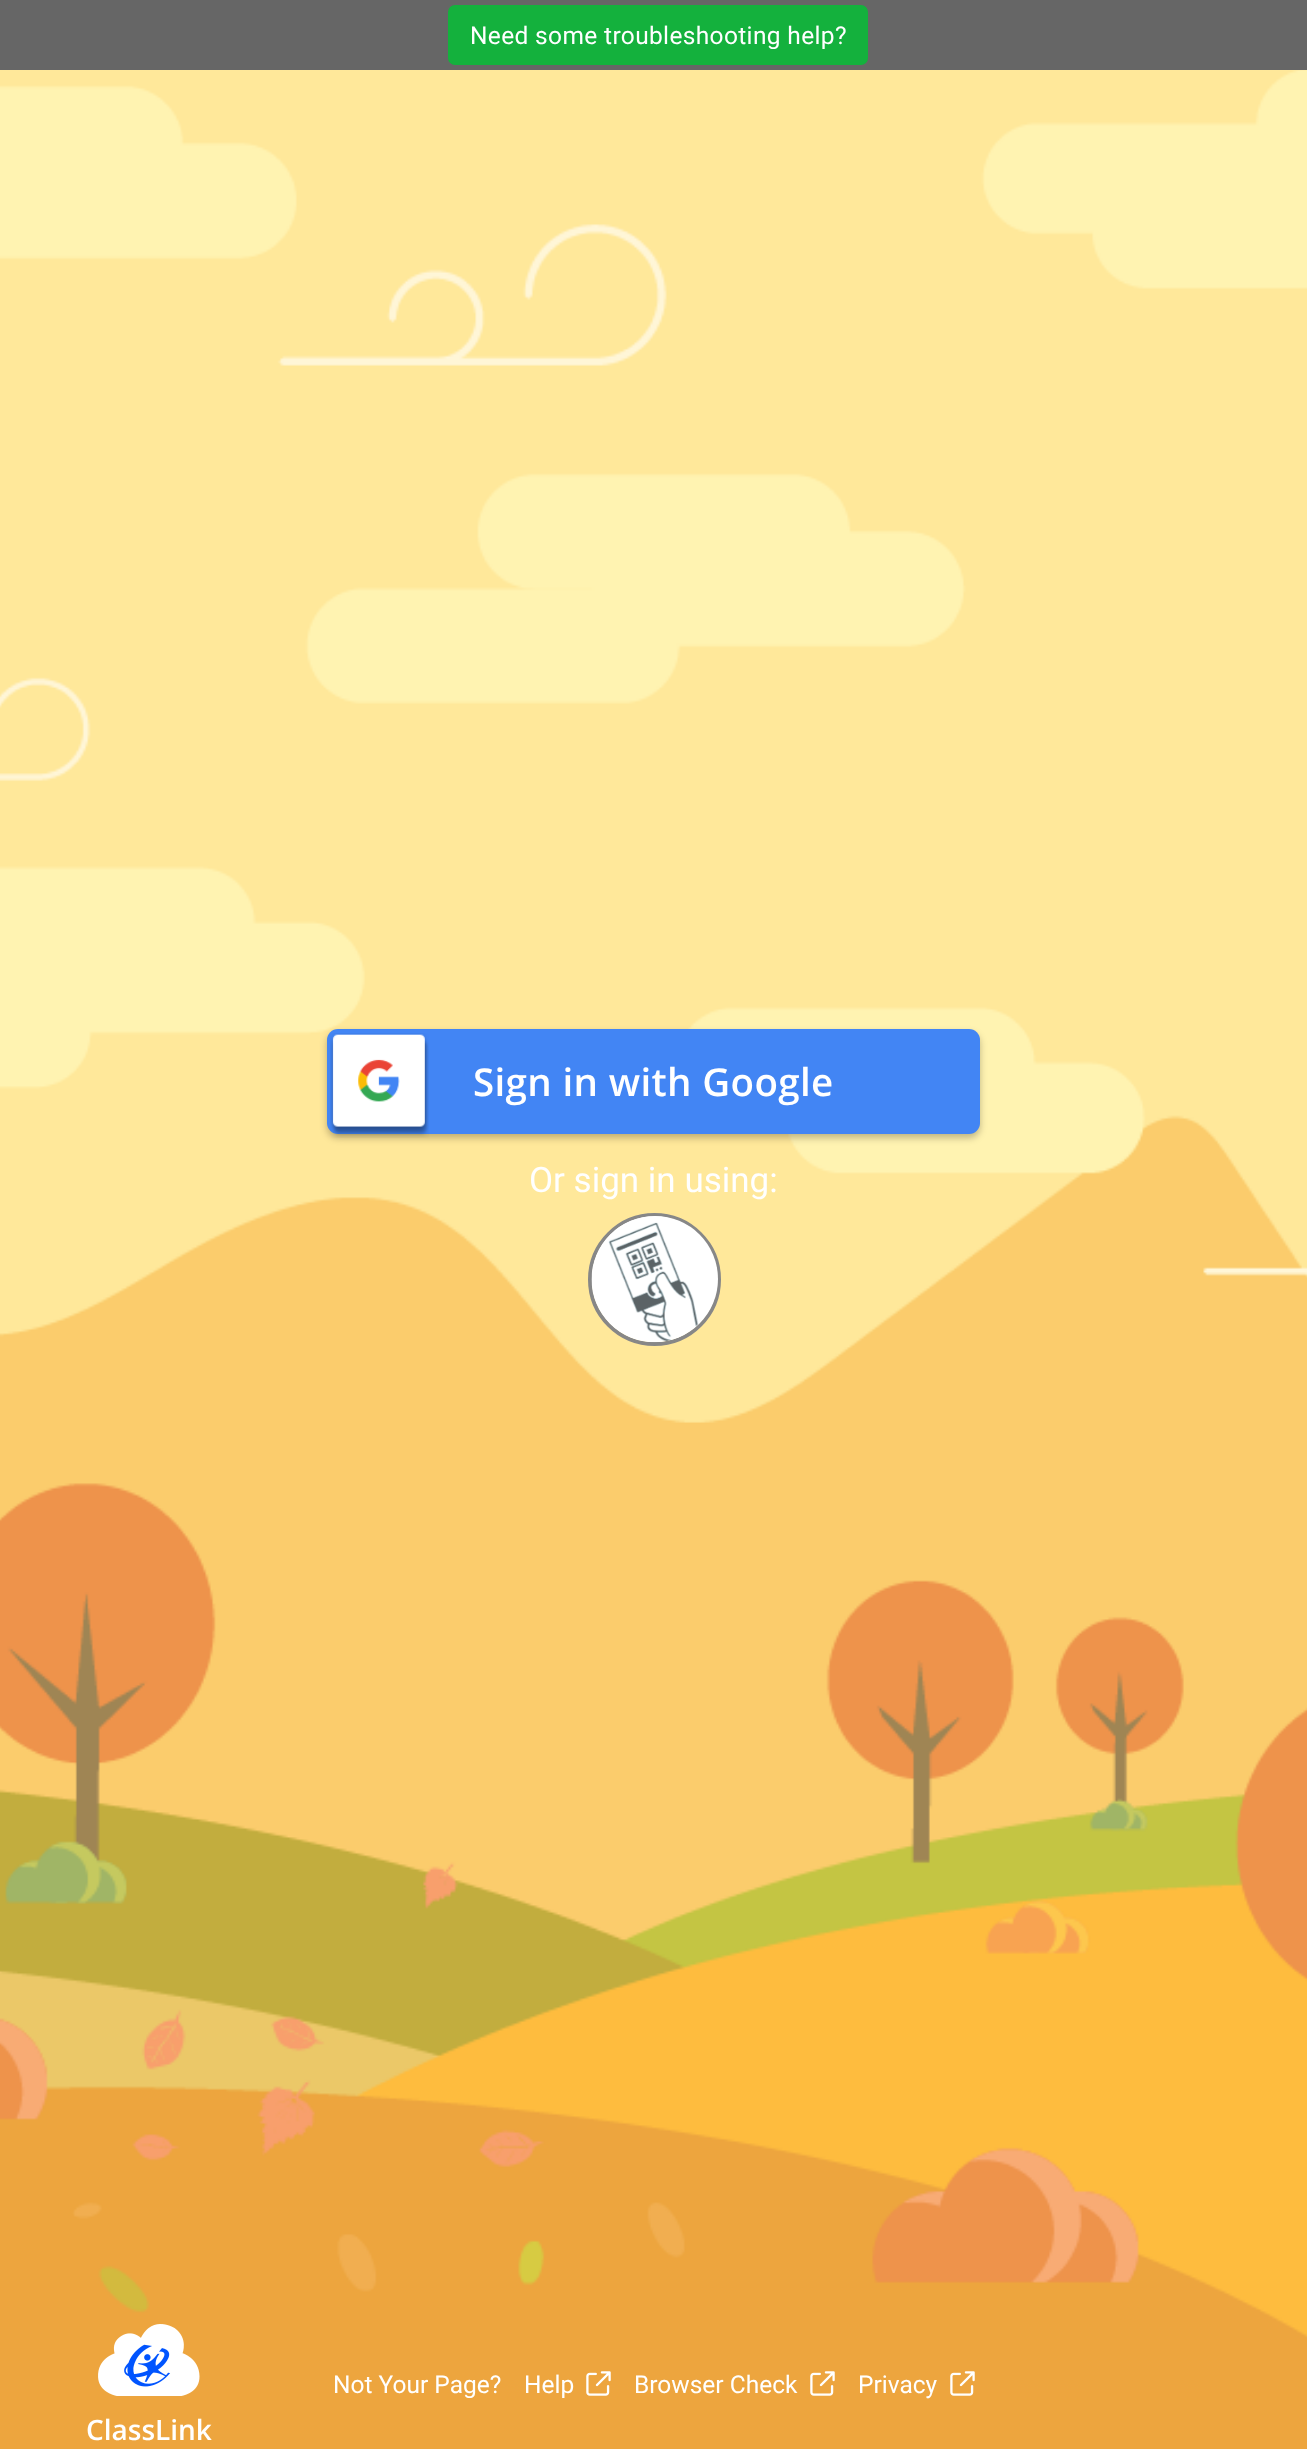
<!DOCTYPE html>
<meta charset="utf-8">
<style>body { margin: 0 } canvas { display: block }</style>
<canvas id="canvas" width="1307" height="2449"></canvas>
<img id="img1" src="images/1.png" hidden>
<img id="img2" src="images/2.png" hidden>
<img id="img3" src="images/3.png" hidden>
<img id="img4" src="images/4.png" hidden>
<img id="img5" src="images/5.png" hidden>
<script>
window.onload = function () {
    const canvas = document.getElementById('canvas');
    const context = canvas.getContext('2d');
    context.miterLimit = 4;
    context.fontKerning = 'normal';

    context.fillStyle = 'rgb(255, 255, 255)';
    context.fillRect(0, 0, 1307, 2449);
    context.drawImage(document.getElementById('img1'), 0, 70, 1307, 2379);
    context.fillStyle = 'rgb(102, 102, 102)';
    context.fillRect(0, 0, 1307, 70);
    context.fillStyle = 'rgb(20, 177, 61)';
    context.beginPath();
    context.roundRect(448, 5, 420, 60, 7);
    context.fill();
    context.fillStyle = 'rgba(0, 0, 0, 0.25)';
    context.filter = 'blur(3.5px)';
    context.beginPath();
    context.roundRect(327, 1033, 653, 105, 11);
    context.fill();
    context.filter = 'none';
    context.fillStyle = 'rgb(66, 133, 244)';
    context.beginPath();
    context.roundRect(327, 1029, 653, 105, 11);
    context.fill();
    context.drawImage(document.getElementById('img2'), 330, 1033, 99, 105);
    context.beginPath();
    context.arc(654.5, 1279.5, 64.5, 0, 2 * Math.PI);
    context.strokeStyle = 'rgb(135, 135, 135)';
    context.lineWidth = 4;
    context.stroke();
    context.fillStyle = 'rgb(255, 255, 255)';
    context.beginPath();
    context.arc(655, 1279, 63, 0, 2 * Math.PI);
    context.fill();
    context.drawImage(document.getElementById('img3'), 591, 1216, 108, 127);
    context.drawImage(document.getElementById('img4'), 586, 2371, 25, 25);
    context.drawImage(document.getElementById('img4'), 810, 2371, 25, 25);
    context.drawImage(document.getElementById('img4'), 950, 2371, 25, 25);
    context.drawImage(document.getElementById('img5'), 98, 2324, 102, 72);
    context.letterSpacing = '0.35px';
    context.font = '24.5px Roboto';
    context.fillText('Need some troubleshooting help?', 470, 44);
    context.font = '600 38.5px Open Sans';
    context.fillText('Sign in with Google', 473, 1096);
    context.letterSpacing = '0px';
    context.font = '35px Roboto';
    context.fillText('Or sign in using:', 529, 1192);
    context.font = '24.5px Roboto';
    context.fillText('Not Your Page?', 333, 2393);
    context.fillText('Help', 524, 2393);
    context.fillText('Browser Check', 634, 2393);
    context.fillText('Privacy', 858, 2393);
    context.font = '600 28px Open Sans';
    context.fillText('ClassLink', 86, 2440);
};
</script>
